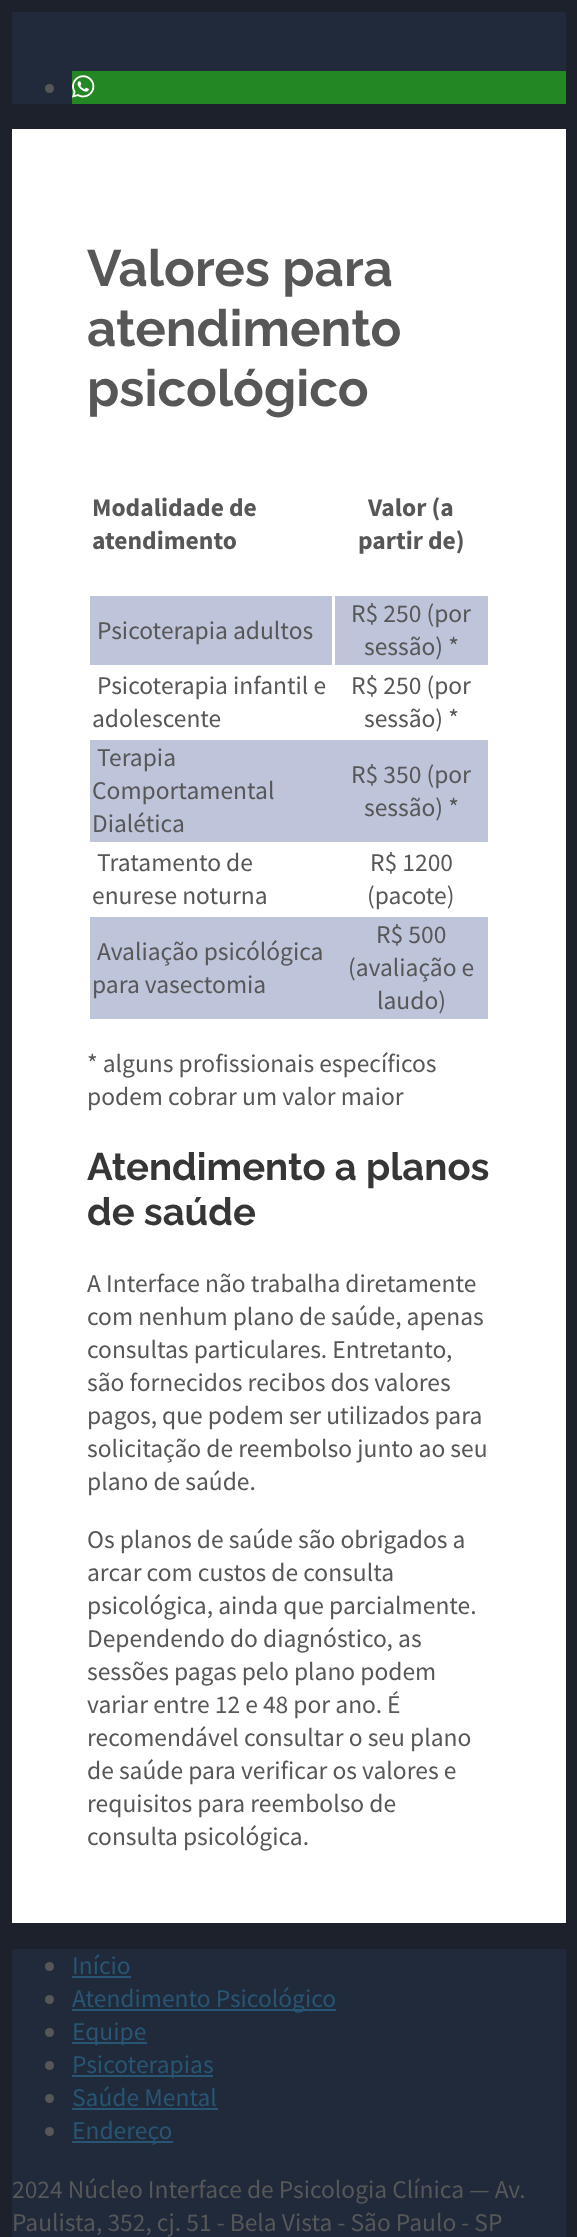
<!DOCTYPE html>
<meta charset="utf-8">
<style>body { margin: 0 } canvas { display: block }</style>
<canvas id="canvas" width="577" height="2237"></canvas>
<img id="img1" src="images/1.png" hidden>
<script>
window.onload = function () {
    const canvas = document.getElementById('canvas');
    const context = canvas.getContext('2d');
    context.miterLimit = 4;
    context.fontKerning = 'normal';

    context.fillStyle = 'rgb(28, 33, 43)';
    context.fillRect(0, 0, 577, 2237);
    context.fillStyle = 'rgb(32, 42, 59)';
    context.fillRect(12, 12, 554, 92);
    context.fillStyle = 'rgb(35, 135, 35)';
    context.fillRect(72, 71, 494, 33);
    context.fillStyle = 'rgb(87, 87, 87)';
    context.beginPath();
    context.arc(49.5, 88.5, 4.5, 0, 2 * Math.PI);
    context.fill();
    context.drawImage(document.getElementById('img1'), 72, 75, 23, 23);
    context.fillStyle = 'rgb(255, 255, 255)';
    context.fillRect(12, 129, 554, 1794);
    context.fillStyle = 'rgb(190, 196, 218)';
    context.fillRect(90, 596, 242, 69);
    context.fillRect(335, 596, 153, 69);
    context.fillRect(90, 740, 398, 102);
    context.fillRect(90, 917, 398, 102);
    context.fillStyle = 'rgb(32, 42, 59)';
    context.fillRect(12, 1949, 554, 288);
    context.fillStyle = 'rgb(87, 87, 87)';
    context.beginPath();
    context.arc(49.5, 1966.5, 4.5, 0, 2 * Math.PI);
    context.fill();
    context.fillStyle = 'rgb(39, 85, 115)';
    context.fillRect(72, 1976, 59, 2);
    context.fillStyle = 'rgb(87, 87, 87)';
    context.beginPath();
    context.arc(49.5, 1999.5, 4.5, 0, 2 * Math.PI);
    context.fill();
    context.fillStyle = 'rgb(39, 85, 115)';
    context.fillRect(72, 2009, 264, 2);
    context.fillStyle = 'rgb(87, 87, 87)';
    context.beginPath();
    context.arc(49.5, 2032.5, 4.5, 0, 2 * Math.PI);
    context.fill();
    context.fillStyle = 'rgb(39, 85, 115)';
    context.fillRect(72, 2042, 75, 2);
    context.fillStyle = 'rgb(87, 87, 87)';
    context.beginPath();
    context.arc(49.5, 2065.5, 4.5, 0, 2 * Math.PI);
    context.fill();
    context.fillStyle = 'rgb(39, 85, 115)';
    context.fillRect(72, 2075, 141, 2);
    context.fillStyle = 'rgb(87, 87, 87)';
    context.beginPath();
    context.arc(49.5, 2098.5, 4.5, 0, 2 * Math.PI);
    context.fill();
    context.fillStyle = 'rgb(39, 85, 115)';
    context.fillRect(72, 2108, 146, 2);
    context.fillStyle = 'rgb(87, 87, 87)';
    context.beginPath();
    context.arc(49.5, 2131.5, 4.5, 0, 2 * Math.PI);
    context.fill();
    context.fillStyle = 'rgb(39, 85, 115)';
    context.fillRect(72, 2141, 101, 2);
    context.font = 'bold 51px Raleway';
    context.fillStyle = 'rgb(87, 87, 87)';
    context.fillText('Valores para', 87, 286);
    context.fillText('atendimento', 87, 346);
    context.fillText('psicológico', 87, 406);
    context.font = 'bold 25.5px Source Sans Pro';
    context.fillText('Modalidade de', 92, 516);
    context.fillText('atendimento', 92, 549);
    context.fillText('Valor (a', 368, 516);
    context.fillText('partir de)', 358, 549);
    context.font = '25.5px Source Sans Pro';
    context.fillText('Psicoterapia adultos', 97, 639);
    context.fillText('R$ 250 (por', 351, 622);
    context.fillText('sessão) *', 364, 655);
    context.fillText('Psicoterapia infantil e', 97, 694);
    context.fillText('adolescente', 92, 727);
    context.fillText('R$ 250 (por', 351, 694);
    context.fillText('sessão) *', 364, 727);
    context.fillText('Terapia', 97, 766);
    context.fillText('Comportamental', 92, 799);
    context.fillText('Dialética', 92, 832);
    context.fillText('R$ 350 (por', 351, 783);
    context.fillText('sessão) *', 364, 816);
    context.fillText('Tratamento de', 97, 871);
    context.fillText('enurese noturna', 92, 904);
    context.fillText('R$ 1200', 370, 871);
    context.fillText('(pacote)', 367, 904);
    context.fillText('Avaliação psicólógica', 97, 960);
    context.fillText('para vasectomia', 92, 993);
    context.fillText('R$ 500', 376, 943);
    context.fillText('(avaliação e', 348, 976);
    context.fillText('laudo)', 377, 1009);
    context.fillText('* alguns profissionais específicos', 87, 1072);
    context.fillText('podem cobrar um valor maior', 87, 1105);
    context.font = 'bold 38.25px Raleway';
    context.fillStyle = 'rgb(54, 54, 54)';
    context.fillText('Atendimento a planos', 87, 1180);
    context.fillText('de saúde', 87, 1225);
    context.font = '25.5px Source Sans Pro';
    context.fillStyle = 'rgb(87, 87, 87)';
    context.fillText('A Interface não trabalha diretamente', 87, 1292);
    context.fillText('com nenhum plano de saúde, apenas', 87, 1325);
    context.fillText('consultas particulares. Entretanto,', 87, 1358);
    context.fillText('são fornecidos recibos dos valores', 87, 1391);
    context.fillText('pagos, que podem ser utilizados para', 87, 1424);
    context.fillText('solicitação de reembolso junto ao seu', 87, 1457);
    context.fillText('plano de saúde.', 87, 1490);
    context.fillText('Os planos de saúde são obrigados a', 87, 1548);
    context.fillText('arcar com custos de consulta', 87, 1581);
    context.fillText('psicológica, ainda que parcialmente.', 87, 1614);
    context.fillText('Dependendo do diagnóstico, as', 87, 1647);
    context.fillText('sessões pagas pelo plano podem', 87, 1680);
    context.fillText('variar entre 12 e 48 por ano. É', 87, 1713);
    context.fillText('recomendável consultar o seu plano', 87, 1746);
    context.fillText('de saúde para verificar os valores e', 87, 1779);
    context.fillText('requisitos para reembolso de', 87, 1812);
    context.fillText('consulta psicológica.', 87, 1845);
    context.fillStyle = 'rgb(39, 85, 115)';
    context.fillText('Início', 72, 1974);
    context.fillText('Atendimento Psicológico', 72, 2007);
    context.fillText('Equipe', 72, 2040);
    context.fillText('Psicoterapias', 72, 2073);
    context.fillText('Saúde Mental', 72, 2106);
    context.fillText('Endereço', 72, 2139);
    context.fillStyle = 'rgb(87, 87, 87)';
    context.fillText('2024 Núcleo Interface de Psicologia Clínica — Av.', 12, 2198);
    context.fillText('Paulista, 352, cj. 51 - Bela Vista - São Paulo - SP', 12, 2231);
};
</script>
